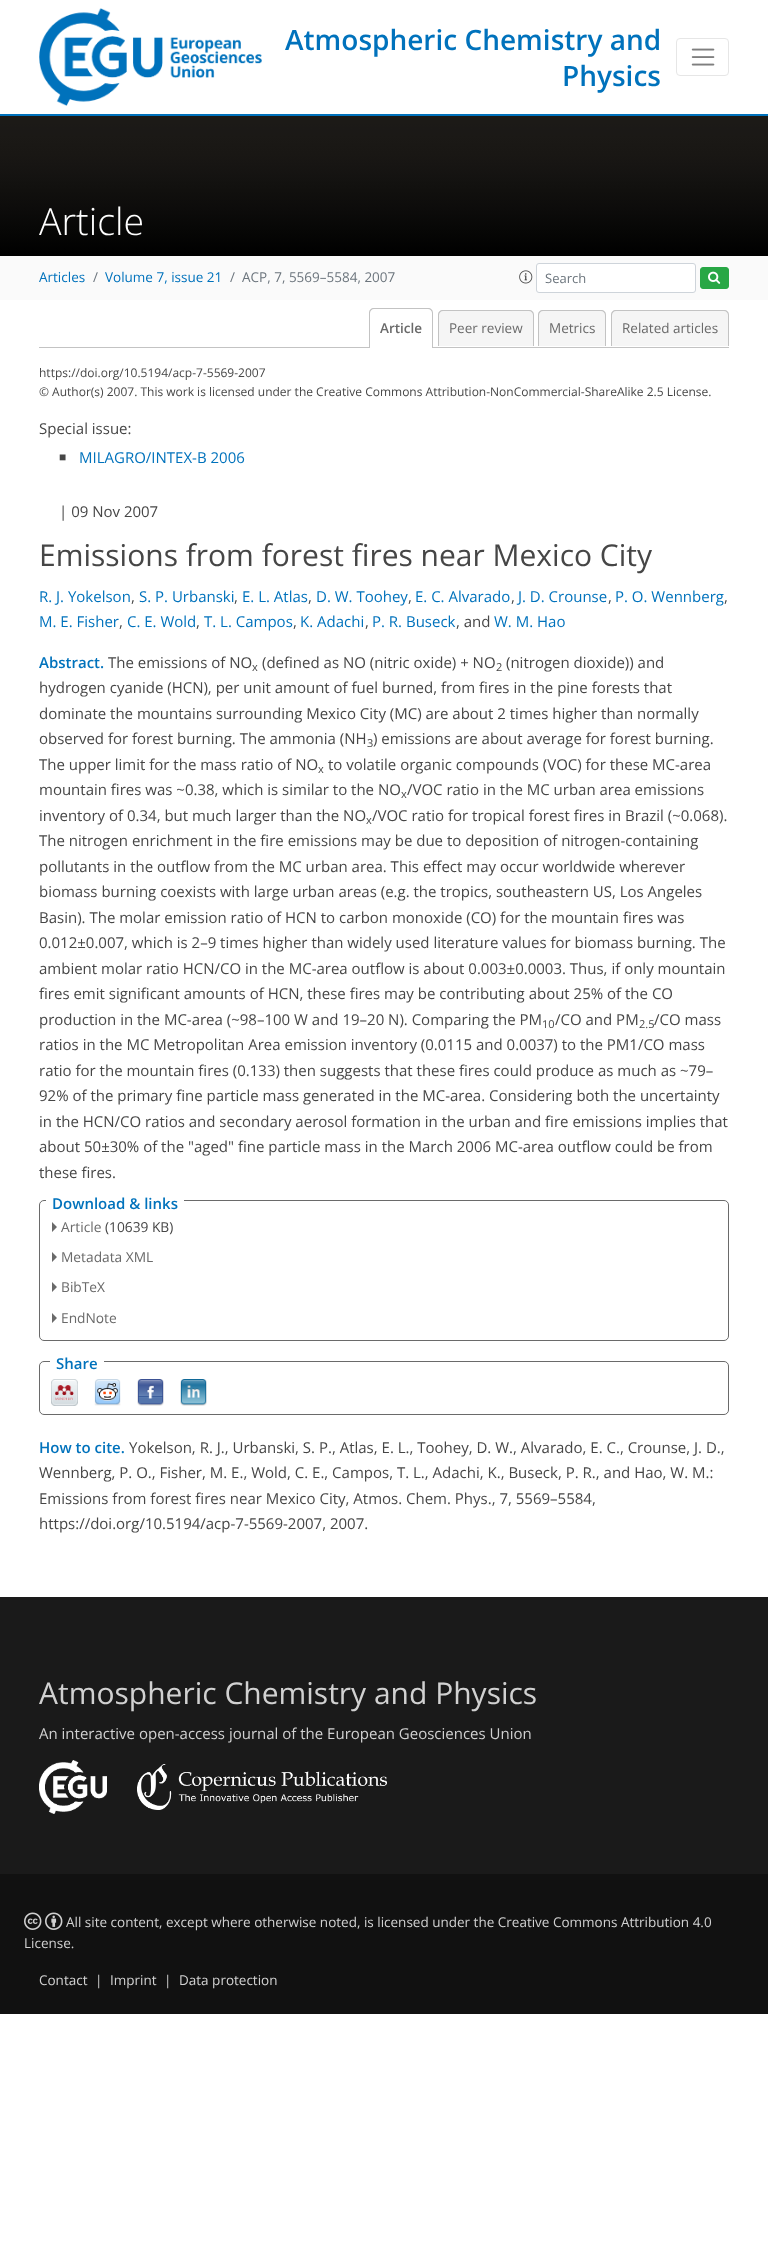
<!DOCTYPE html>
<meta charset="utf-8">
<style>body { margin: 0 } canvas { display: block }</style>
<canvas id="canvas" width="768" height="2255"></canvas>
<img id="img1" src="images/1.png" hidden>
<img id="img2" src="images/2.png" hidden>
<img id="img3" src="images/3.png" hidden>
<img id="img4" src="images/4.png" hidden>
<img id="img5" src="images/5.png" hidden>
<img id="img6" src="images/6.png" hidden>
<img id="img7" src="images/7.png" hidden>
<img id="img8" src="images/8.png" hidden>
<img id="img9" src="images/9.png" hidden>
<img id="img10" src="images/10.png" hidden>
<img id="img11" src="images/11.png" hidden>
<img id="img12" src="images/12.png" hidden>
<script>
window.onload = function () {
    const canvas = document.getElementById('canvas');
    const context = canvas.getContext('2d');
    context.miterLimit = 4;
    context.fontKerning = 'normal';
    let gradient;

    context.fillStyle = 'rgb(255, 255, 255)';
    context.fillRect(0, 0, 768, 2255);
    context.drawImage(document.getElementById('img1'), 39, 8, 223, 98);
    context.beginPath();
    context.roundRect(676.5, 38.5, 52, 37, 3.5);
    context.strokeStyle = 'rgb(230, 230, 230)';
    context.stroke();
    context.drawImage(document.getElementById('img2'), 691, 48, 24, 18);
    context.fillStyle = 'rgb(0, 114, 188)';
    context.fillRect(0, 114, 768, 2);
    gradient = context.createLinearGradient(384, 256, 384, 116);
    gradient.addColorStop(0, 'rgb(0, 0, 0)');
    gradient.addColorStop(0.19, 'rgb(7, 7, 6)');
    gradient.addColorStop(0.34, 'rgb(13, 12, 11)');
    gradient.addColorStop(0.47, 'rgb(17, 16, 14)');
    gradient.addColorStop(0.56, 'rgb(20, 19, 17)');
    gradient.addColorStop(0.65, 'rgb(23, 21, 19)');
    gradient.addColorStop(0.73, 'rgb(25, 23, 20)');
    gradient.addColorStop(0.8, 'rgb(26, 24, 21)');
    gradient.addColorStop(0.86, 'rgb(27, 25, 22)');
    gradient.addColorStop(0.91, 'rgb(27, 25, 23)');
    gradient.addColorStop(0.95, 'rgb(28, 26, 23)');
    gradient.addColorStop(1, 'rgb(28, 26, 23)');
    context.fillStyle = gradient;
    context.fillRect(0, 116, 768, 140);
    context.fillStyle = 'rgb(250, 250, 250)';
    context.fillRect(0, 256, 768, 44);
    context.drawImage(document.getElementById('img3'), 519, 270, 14, 14);
    context.fillStyle = 'rgb(255, 255, 255)';
    context.beginPath();
    context.roundRect(536.5, 263.5, 159, 29, 2.5);
    context.fill();
    context.strokeStyle = 'rgb(206, 212, 218)';
    context.stroke();
    context.fillStyle = 'rgb(40, 167, 69)';
    context.beginPath();
    context.roundRect(700.5, 267.5, 28, 21, 2.5);
    context.fill();
    context.strokeStyle = 'rgb(40, 167, 69)';
    context.stroke();
    context.drawImage(document.getElementById('img4'), 708, 271, 13, 13);
    context.fillStyle = 'rgb(195, 195, 195)';
    context.fillRect(39, 347, 690, 1);
    context.fillStyle = 'rgb(255, 255, 255)';
    context.beginPath();
    context.roundRect(369, 308, 64, 40, [5, 5, 0, 0]);
    context.fill();
    context.fillStyle = 'rgb(195, 195, 195)';
    context.beginPath();
    context.moveTo(374, 308);
    context.lineTo(428, 308);
    context.bezierCurveTo(431, 308, 433, 310, 433, 313);
    context.lineTo(433, 348);
    context.lineTo(369, 348);
    context.lineTo(369, 313);
    context.bezierCurveTo(369, 310, 371, 308, 374, 308);
    context.closePath();
    context.moveTo(374, 309);
    context.lineTo(428, 309);
    context.bezierCurveTo(430, 309, 432, 311, 432, 313);
    context.lineTo(432, 348);
    context.lineTo(370, 348);
    context.lineTo(370, 313);
    context.bezierCurveTo(370, 311, 372, 309, 374, 309);
    context.closePath();
    context.fill('evenodd');
    context.fillStyle = 'rgb(245, 245, 245)';
    context.beginPath();
    context.roundRect(438, 310, 96, 36, [5, 5, 0, 0]);
    context.fill();
    context.fillStyle = 'rgb(195, 195, 195)';
    context.beginPath();
    context.moveTo(443, 310);
    context.lineTo(529, 310);
    context.bezierCurveTo(532, 310, 534, 312, 534, 315);
    context.lineTo(534, 346);
    context.lineTo(438, 346);
    context.lineTo(438, 315);
    context.bezierCurveTo(438, 312, 440, 310, 443, 310);
    context.closePath();
    context.moveTo(443, 311);
    context.lineTo(529, 311);
    context.bezierCurveTo(531, 311, 533, 313, 533, 315);
    context.lineTo(533, 346);
    context.lineTo(439, 346);
    context.lineTo(439, 315);
    context.bezierCurveTo(439, 313, 441, 311, 443, 311);
    context.closePath();
    context.fill('evenodd');
    context.fillStyle = 'rgb(245, 245, 245)';
    context.beginPath();
    context.roundRect(538, 310, 68, 36, [5, 5, 0, 0]);
    context.fill();
    context.fillStyle = 'rgb(195, 195, 195)';
    context.beginPath();
    context.moveTo(543, 310);
    context.lineTo(601, 310);
    context.bezierCurveTo(604, 310, 606, 312, 606, 315);
    context.lineTo(606, 346);
    context.lineTo(538, 346);
    context.lineTo(538, 315);
    context.bezierCurveTo(538, 312, 540, 310, 543, 310);
    context.closePath();
    context.moveTo(543, 311);
    context.lineTo(601, 311);
    context.bezierCurveTo(603, 311, 605, 313, 605, 315);
    context.lineTo(605, 346);
    context.lineTo(539, 346);
    context.lineTo(539, 315);
    context.bezierCurveTo(539, 313, 541, 311, 543, 311);
    context.closePath();
    context.fill('evenodd');
    context.fillStyle = 'rgb(245, 245, 245)';
    context.beginPath();
    context.roundRect(611, 310, 118, 36, [5, 5, 0, 0]);
    context.fill();
    context.fillStyle = 'rgb(195, 195, 195)';
    context.beginPath();
    context.moveTo(616, 310);
    context.lineTo(724, 310);
    context.bezierCurveTo(727, 310, 729, 312, 729, 315);
    context.lineTo(729, 346);
    context.lineTo(611, 346);
    context.lineTo(611, 315);
    context.bezierCurveTo(611, 312, 613, 310, 616, 310);
    context.closePath();
    context.moveTo(616, 311);
    context.lineTo(724, 311);
    context.bezierCurveTo(726, 311, 728, 313, 728, 315);
    context.lineTo(728, 346);
    context.lineTo(612, 346);
    context.lineTo(612, 315);
    context.bezierCurveTo(612, 313, 614, 311, 616, 311);
    context.closePath();
    context.fill('evenodd');
    context.beginPath();
    context.roundRect(39.5, 1200.5, 689, 140, 4.5);
    context.strokeStyle = 'rgb(106, 106, 106)';
    context.stroke();
    context.fillStyle = 'rgb(255, 255, 255)';
    context.fillRect(46, 1200, 138, 1);
    context.fillStyle = 'rgb(106, 106, 106)';
    context.beginPath();
    context.moveTo(52, 1232);
    context.lineTo(52, 1222);
    context.lineTo(57, 1227);
    context.closePath();
    context.moveTo(52, 1262);
    context.lineTo(52, 1252);
    context.lineTo(57, 1257);
    context.closePath();
    context.fill();
    context.beginPath();
    context.moveTo(52, 1292);
    context.lineTo(52, 1282);
    context.lineTo(57, 1287);
    context.closePath();
    context.moveTo(52, 1323);
    context.lineTo(52, 1313);
    context.lineTo(57, 1318);
    context.closePath();
    context.fill();
    context.beginPath();
    context.roundRect(39.5, 1361.5, 689, 53, 4.5);
    context.stroke();
    context.fillStyle = 'rgb(255, 255, 255)';
    context.fillRect(50, 1361, 54, 1);
    context.drawImage(document.getElementById('img5'), 51, 1379, 27, 27);
    context.drawImage(document.getElementById('img6'), 94, 1379, 27, 27);
    context.drawImage(document.getElementById('img7'), 137, 1379, 27, 27);
    context.drawImage(document.getElementById('img8'), 180, 1379, 27, 27);
    context.fillStyle = 'rgb(26, 26, 26)';
    context.fillRect(0, 1597, 768, 277);
    context.drawImage(document.getElementById('img9'), 39, 1760, 68, 54);
    context.drawImage(document.getElementById('img10'), 137, 1764, 250, 46);
    context.fillStyle = 'rgb(17, 17, 17)';
    context.fillRect(0, 1874, 768, 140);
    context.drawImage(document.getElementById('img11'), 24, 1912, 18, 18);
    context.drawImage(document.getElementById('img12'), 45, 1912, 18, 18);
    context.font = '600 28px Open Sans';
    context.fillStyle = 'rgb(0, 114, 188)';
    context.fillText('Atmospheric Chemistry and', 285, 50);
    context.fillText('Physics', 562, 86);
    context.font = '300 37.5px Open Sans';
    context.fillStyle = 'rgb(255, 255, 255)';
    context.fillText('Article', 39, 235);
    context.font = '13.5px Open Sans';
    context.fillStyle = 'rgb(0, 114, 188)';
    context.fillText('Articles', 39, 282);
    context.fillStyle = 'rgb(108, 117, 125)';
    context.fillText('/', 93, 282);
    context.fillStyle = 'rgb(0, 114, 188)';
    context.fillText('Volume 7, issue 21', 105, 282);
    context.fillStyle = 'rgb(108, 117, 125)';
    context.fillText('/', 230, 282);
    context.fillText('ACP, 7, 5569–5584, 2007', 242, 282);
    context.font = '13px Open Sans';
    context.fillText('Search', 545, 283);
    context.font = '600 13.5px Open Sans';
    context.fillStyle = 'rgb(106, 106, 106)';
    context.fillText('Article', 380, 333);
    context.font = '13.5px Open Sans';
    context.fillText('Peer review', 449, 333);
    context.fillText('Metrics', 549, 333);
    context.fillText('Related articles', 622, 333);
    context.font = '12px Open Sans';
    context.fillStyle = 'rgb(70, 70, 70)';
    context.fillText('https://doi.org/10.5194/acp-7-5569-2007', 39, 377);
    context.fillText('© Author(s) 2007. This work is licensed under the Creative Commons Attribution-NonCommercial-ShareAlike 2.5 License.', 39, 396);
    context.font = '15px Open Sans';
    context.fillText('Special issue:', 39, 434);
    context.font = '12px Liberation Sans';
    context.fillText('■', 59, 461);
    context.font = '15px Open Sans';
    context.fillStyle = 'rgb(0, 114, 188)';
    context.fillText('MILAGRO/INTEX-B 2006', 79, 463);
    context.fillStyle = 'rgb(70, 70, 70)';
    context.fillText('| 09 Nov 2007', 59, 517);
    context.font = '30px Open Sans';
    context.fillText('Emissions from forest fires near Mexico City', 39, 566);
    context.font = '15px Open Sans';
    context.fillStyle = 'rgb(0, 114, 188)';
    context.fillText('R. J. Yokelson', 39, 602);
    context.fillStyle = 'rgb(70, 70, 70)';
    context.fillText(',', 131, 602);
    context.fillStyle = 'rgb(0, 114, 188)';
    context.fillText('S. P. Urbanski', 139, 602);
    context.fillStyle = 'rgb(70, 70, 70)';
    context.fillText(',', 234, 602);
    context.fillStyle = 'rgb(0, 114, 188)';
    context.fillText('E. L. Atlas', 242, 602);
    context.fillStyle = 'rgb(70, 70, 70)';
    context.fillText(',', 308, 602);
    context.fillStyle = 'rgb(0, 114, 188)';
    context.fillText('D. W. Toohey', 316, 602);
    context.fillStyle = 'rgb(70, 70, 70)';
    context.fillText(',', 408, 602);
    context.fillStyle = 'rgb(0, 114, 188)';
    context.fillText('E. C. Alvarado', 415, 602);
    context.fillStyle = 'rgb(70, 70, 70)';
    context.fillText(',', 511, 602);
    context.fillStyle = 'rgb(0, 114, 188)';
    context.fillText('J. D. Crounse', 518, 602);
    context.fillStyle = 'rgb(70, 70, 70)';
    context.fillText(',', 608, 602);
    context.fillStyle = 'rgb(0, 114, 188)';
    context.fillText('P. O. Wennberg', 615, 602);
    context.fillStyle = 'rgb(70, 70, 70)';
    context.fillText(',', 724, 602);
    context.fillStyle = 'rgb(0, 114, 188)';
    context.fillText('M. E. Fisher', 39, 627);
    context.fillStyle = 'rgb(70, 70, 70)';
    context.fillText(',', 119, 627);
    context.fillStyle = 'rgb(0, 114, 188)';
    context.fillText('C. E. Wold', 127, 627);
    context.fillStyle = 'rgb(70, 70, 70)';
    context.fillText(',', 196, 627);
    context.fillStyle = 'rgb(0, 114, 188)';
    context.fillText('T. L. Campos', 204, 627);
    context.fillStyle = 'rgb(70, 70, 70)';
    context.fillText(',', 293, 627);
    context.fillStyle = 'rgb(0, 114, 188)';
    context.fillText('K. Adachi', 300, 627);
    context.fillStyle = 'rgb(70, 70, 70)';
    context.fillText(',', 365, 627);
    context.fillStyle = 'rgb(0, 114, 188)';
    context.fillText('P. R. Buseck', 372, 627);
    context.fillStyle = 'rgb(70, 70, 70)';
    context.fillText(', and', 456, 627);
    context.fillStyle = 'rgb(0, 114, 188)';
    context.fillText('W. M. Hao', 494, 627);
    context.font = '600 15px Open Sans';
    context.fillText('Abstract.', 39, 668);
    context.font = '15px Open Sans';
    context.fillStyle = 'rgb(70, 70, 70)';
    context.fillText('The emissions of NO', 108, 668);
    context.font = '11px Open Sans';
    context.fillText('x', 252, 671);
    context.font = '15px Open Sans';
    context.fillText('(defined as NO (nitric oxide) + NO', 262, 668);
    context.font = '11px Open Sans';
    context.fillText('2', 496, 671);
    context.font = '15px Open Sans';
    context.fillText('(nitrogen dioxide)) and', 506, 668);
    context.fillText('hydrogen cyanide (HCN), per unit amount of fuel burned, from fires in the pine forests that', 39, 693);
    context.fillText('dominate the mountains surrounding Mexico City (MC) are about 2 times higher than normally', 39, 719);
    context.fillText('observed for forest burning. The ammonia (NH', 39, 744);
    context.font = '11px Open Sans';
    context.fillText('3', 367, 747);
    context.font = '15px Open Sans';
    context.fillText(') emissions are about average for forest burning.', 373, 744);
    context.fillText('The upper limit for the mass ratio of NO', 39, 770);
    context.font = '11px Open Sans';
    context.fillText('x', 318, 773);
    context.font = '15px Open Sans';
    context.fillText('to volatile organic compounds (VOC) for these MC-area', 328, 770);
    context.fillText('mountain fires was ~0.38, which is similar to the NO', 39, 795);
    context.fillText('/VOC ratio in the MC urban area emissions', 407, 795);
    context.font = '11px Open Sans';
    context.fillText('x', 401, 798);
    context.font = '15px Open Sans';
    context.fillText('inventory of 0.34, but much larger than the NO', 39, 821);
    context.font = '11px Open Sans';
    context.fillText('x', 366, 824);
    context.font = '15px Open Sans';
    context.fillText('/VOC ratio for tropical forest fires in Brazil (~0.068).', 372, 821);
    context.fillText('The nitrogen enrichment in the fire emissions may be due to deposition of nitrogen-containing', 39, 846);
    context.fillText('pollutants in the outflow from the MC urban area. This effect may occur worldwide wherever', 39, 872);
    context.fillText('biomass burning coexists with large urban areas (e.g. the tropics, southeastern US, Los Angeles', 39, 897);
    context.fillText('Basin). The molar emission ratio of HCN to carbon monoxide (CO) for the mountain fires was', 39, 923);
    context.fillText('0.012±0.007, which is 2–9 times higher than widely used literature values for biomass burning. The', 39, 948);
    context.fillText('ambient molar ratio HCN/CO in the MC-area outflow is about 0.003±0.0003. Thus, if only mountain', 39, 974);
    context.fillText('fires emit significant amounts of HCN, these fires may be contributing about 25% of the CO', 39, 999);
    context.fillText('production in the MC-area (~98–100 W and 19–20 N). Comparing the PM', 39, 1025);
    context.font = '11px Open Sans';
    context.fillText('10', 542, 1028);
    context.font = '15px Open Sans';
    context.fillText('/CO and PM', 555, 1025);
    context.font = '11px Open Sans';
    context.fillText('2.5', 639, 1028);
    context.font = '15px Open Sans';
    context.fillText('/CO mass', 654, 1025);
    context.fillText('ratios in the MC Metropolitan Area emission inventory (0.0115 and 0.0037) to the PM1/CO mass', 39, 1050);
    context.fillText('ratio for the mountain fires (0.133) then suggests that these fires could produce as much as ~79–', 39, 1076);
    context.fillText('92% of the primary fine particle mass generated in the MC-area. Considering both the uncertainty', 39, 1101);
    context.fillText('in the HCN/CO ratios and secondary aerosol formation in the urban and fire emissions implies that', 39, 1127);
    context.fillText('about 50±30% of the "aged" fine particle mass in the March 2006 MC-area outflow could be from', 39, 1152);
    context.fillText('these fires.', 39, 1178);
    context.font = '600 15px Open Sans';
    context.fillStyle = 'rgb(0, 114, 188)';
    context.fillText('Download & links', 52, 1209);
    context.font = '13.75px Open Sans';
    context.fillStyle = 'rgb(106, 106, 106)';
    context.fillText('Article', 61, 1232);
    context.fillStyle = 'rgb(70, 70, 70)';
    context.fillText('(10639 KB)', 105, 1232);
    context.fillStyle = 'rgb(106, 106, 106)';
    context.fillText('Metadata XML', 61, 1262);
    context.fillText('BibTeX', 61, 1292);
    context.fillText('EndNote', 61, 1323);
    context.font = '600 15px Open Sans';
    context.fillStyle = 'rgb(0, 114, 188)';
    context.fillText('Share', 56, 1369);
    context.fillText('How to cite.', 39, 1453);
    context.font = '15px Open Sans';
    context.fillStyle = 'rgb(70, 70, 70)';
    context.fillText('Yokelson, R. J., Urbanski, S. P., Atlas, E. L., Toohey, D. W., Alvarado, E. C., Crounse, J. D.,', 129, 1453);
    context.fillText('Wennberg, P. O., Fisher, M. E., Wold, C. E., Campos, T. L., Adachi, K., Buseck, P. R., and Hao, W. M.:', 39, 1478);
    context.fillText('Emissions from forest fires near Mexico City, Atmos. Chem. Phys., 7, 5569–5584,', 39, 1504);
    context.fillText('https://doi.org/10.5194/acp-7-5569-2007, 2007.', 39, 1529);
    context.font = '30px Open Sans';
    context.fillStyle = 'rgb(209, 209, 209)';
    context.fillText('Atmospheric Chemistry and Physics', 39, 1704);
    context.font = '15px Open Sans';
    context.fillText('An interactive open-access journal of the European Geosciences Union', 39, 1739);
    context.font = '13.5px Open Sans';
    context.fillText('All site content, except where otherwise noted, is licensed under the Creative Commons Attribution 4.0', 66, 1927);
    context.fillText('License.', 24, 1948);
    context.fillText('Contact', 39, 1985);
    context.fillText('|', 95, 1985);
    context.fillText('Imprint', 110, 1985);
    context.fillText('|', 164, 1985);
    context.fillText('Data protection', 179, 1985);
};
</script>
